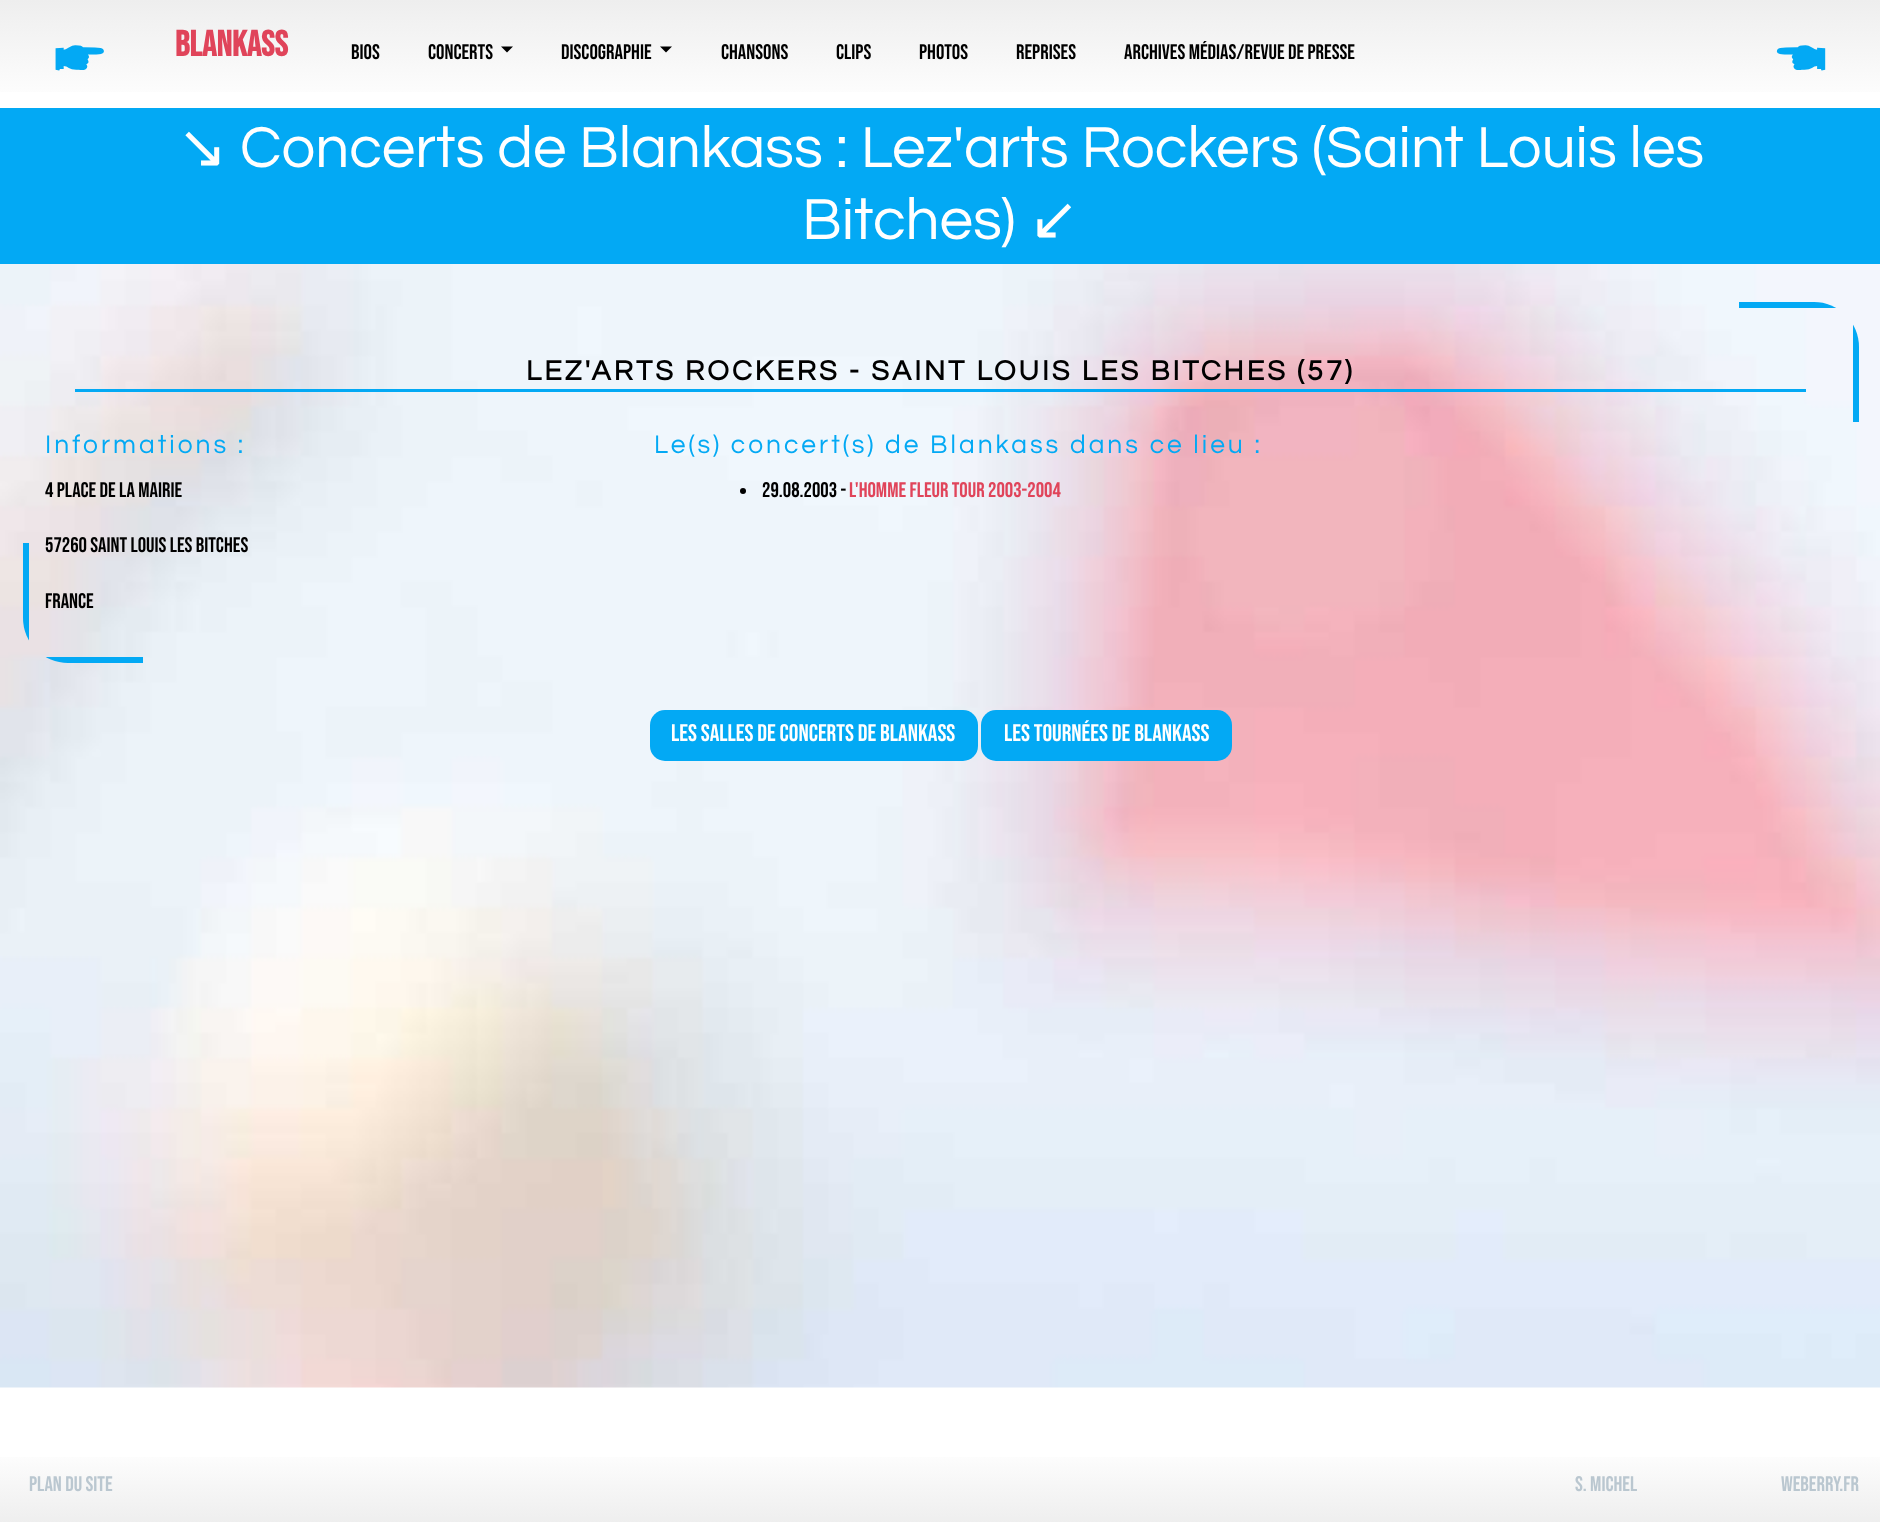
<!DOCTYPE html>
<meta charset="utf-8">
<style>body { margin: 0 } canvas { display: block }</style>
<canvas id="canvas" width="1880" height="1522"></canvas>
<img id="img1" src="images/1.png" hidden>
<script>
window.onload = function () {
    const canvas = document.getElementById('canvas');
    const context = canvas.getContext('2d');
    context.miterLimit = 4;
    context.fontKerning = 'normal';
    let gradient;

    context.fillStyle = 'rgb(255, 255, 255)';
    context.fillRect(0, 0, 1880, 1522);
    gradient = context.createLinearGradient(941, 0, 941, 108);
    gradient.addColorStop(0, 'rgb(238, 238, 238)');
    gradient.addColorStop(1, 'rgb(255, 255, 255)');
    context.fillStyle = gradient;
    context.fillRect(0, 0, 1880, 92);
    context.fillStyle = 'rgb(0, 0, 0)';
    context.beginPath();
    context.moveTo(501, 46.5);
    context.lineTo(513, 46.5);
    context.lineTo(507, 52.5);
    context.closePath();
    context.fill();
    context.beginPath();
    context.moveTo(660, 46.5);
    context.lineTo(672, 46.5);
    context.lineTo(666, 52.5);
    context.closePath();
    context.fill();
    context.drawImage(document.getElementById('img1'), 0, 264, 1880, 1124);
    context.fillStyle = 'rgb(3, 169, 244)';
    context.fillRect(0, 108, 1880, 156);
    context.fillRect(75, 389, 1731, 3);
    context.save();
    context.beginPath();
    context.roundRect(23, 302, 1836, 361, 45);
    context.clip();
    context.fillRect(45, 657, 98, 6);
    context.fillRect(23, 543, 6, 98);
    context.fillRect(1739, 302, 98, 6);
    context.fillRect(1853, 324, 6, 98);
    context.restore();
    context.fillStyle = 'rgb(0, 0, 0)';
    context.beginPath();
    context.arc(743, 491, 3, 0, 2 * Math.PI);
    context.fill();
    context.fillStyle = 'rgb(3, 169, 244)';
    context.beginPath();
    context.roundRect(650, 710, 328, 51, 15);
    context.fill();
    context.beginPath();
    context.roundRect(981, 710, 251, 51, 15);
    context.fill();
    gradient = context.createLinearGradient(941, 1446, 941, 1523);
    gradient.addColorStop(0, 'rgb(255, 255, 255)');
    gradient.addColorStop(1, 'rgb(238, 238, 238)');
    context.fillStyle = gradient;
    context.fillRect(0, 1457, 1880, 65);
    context.font = '72px FreeSerif';
    context.fillStyle = 'rgb(3, 169, 244)';
    context.fillText('🖝', 52, 75);
    context.font = 'bold 36px Bebas Neue';
    context.fillStyle = 'rgb(224, 68, 90)';
    context.fillText('BLANKASS', 175, 56);
    context.font = '21px Bebas Neue';
    context.fillStyle = 'rgb(0, 0, 0)';
    context.fillText('Bios', 351, 59);
    context.fillText('Concerts', 428, 59);
    context.fillText('Discographie', 561, 59);
    context.fillText('Chansons', 721, 59);
    context.fillText('Clips', 836, 59);
    context.fillText('Photos', 919, 59);
    context.fillText('Reprises', 1016, 59);
    context.fillText('Archives médias/revue de presse', 1124, 59);
    context.font = '72px FreeSerif';
    context.fillStyle = 'rgb(3, 169, 244)';
    context.fillText('🖜', 1776, 75);
    context.font = '60px DejaVu Sans';
    context.fillStyle = 'rgb(255, 255, 255)';
    context.fillText('↘', 177, 167);
    context.font = '60px Questrial';
    context.fillText('Concerts de Blankass : Lez\'arts Rockers (Saint Louis les', 240, 167);
    context.fillText('Bitches)', 802, 239);
    context.font = '60px DejaVu Sans';
    context.fillText('↙', 1029, 239);
    context.letterSpacing = '3px';
    context.font = 'bold 28.8px Questrial';
    context.fillStyle = 'rgb(0, 0, 0)';
    context.fillText('LEZ\'ARTS ROCKERS - SAINT LOUIS LES BITCHES (57)', 526, 380);
    context.font = '26.4px Questrial';
    context.fillStyle = 'rgb(3, 169, 244)';
    context.fillText('Informations :', 45, 453);
    context.letterSpacing = '0px';
    context.font = '21px Bebas Neue';
    context.fillStyle = 'rgb(0, 0, 0)';
    context.fillText('4 place de la Mairie', 45, 497);
    context.fillText('57260 Saint Louis les Bitches', 45, 552);
    context.fillText('France', 45, 608);
    context.letterSpacing = '3px';
    context.font = '26.4px Questrial';
    context.fillStyle = 'rgb(3, 169, 244)';
    context.fillText('Le(s) concert(s) de Blankass dans ce lieu :', 654, 453);
    context.letterSpacing = '0px';
    context.font = '21px Bebas Neue';
    context.fillStyle = 'rgb(0, 0, 0)';
    context.fillText('29.08.2003 -', 762, 497);
    context.fillStyle = 'rgb(224, 68, 90)';
    context.fillText('L\'homme fleur Tour 2003-2004', 849, 497);
    context.font = '24px Bebas Neue';
    context.fillStyle = 'rgb(255, 255, 255)';
    context.fillText('Les salles de concerts de Blankass', 671, 741);
    context.fillText('Les tournées de Blankass', 1004, 741);
    context.font = '21px Bebas Neue';
    context.fillStyle = 'rgb(186, 199, 208)';
    context.fillText('Plan du site', 29, 1491);
    context.fillText('S. Michel', 1575, 1491);
    context.fillText('WeBerry.fr', 1781, 1491);
};
</script>
